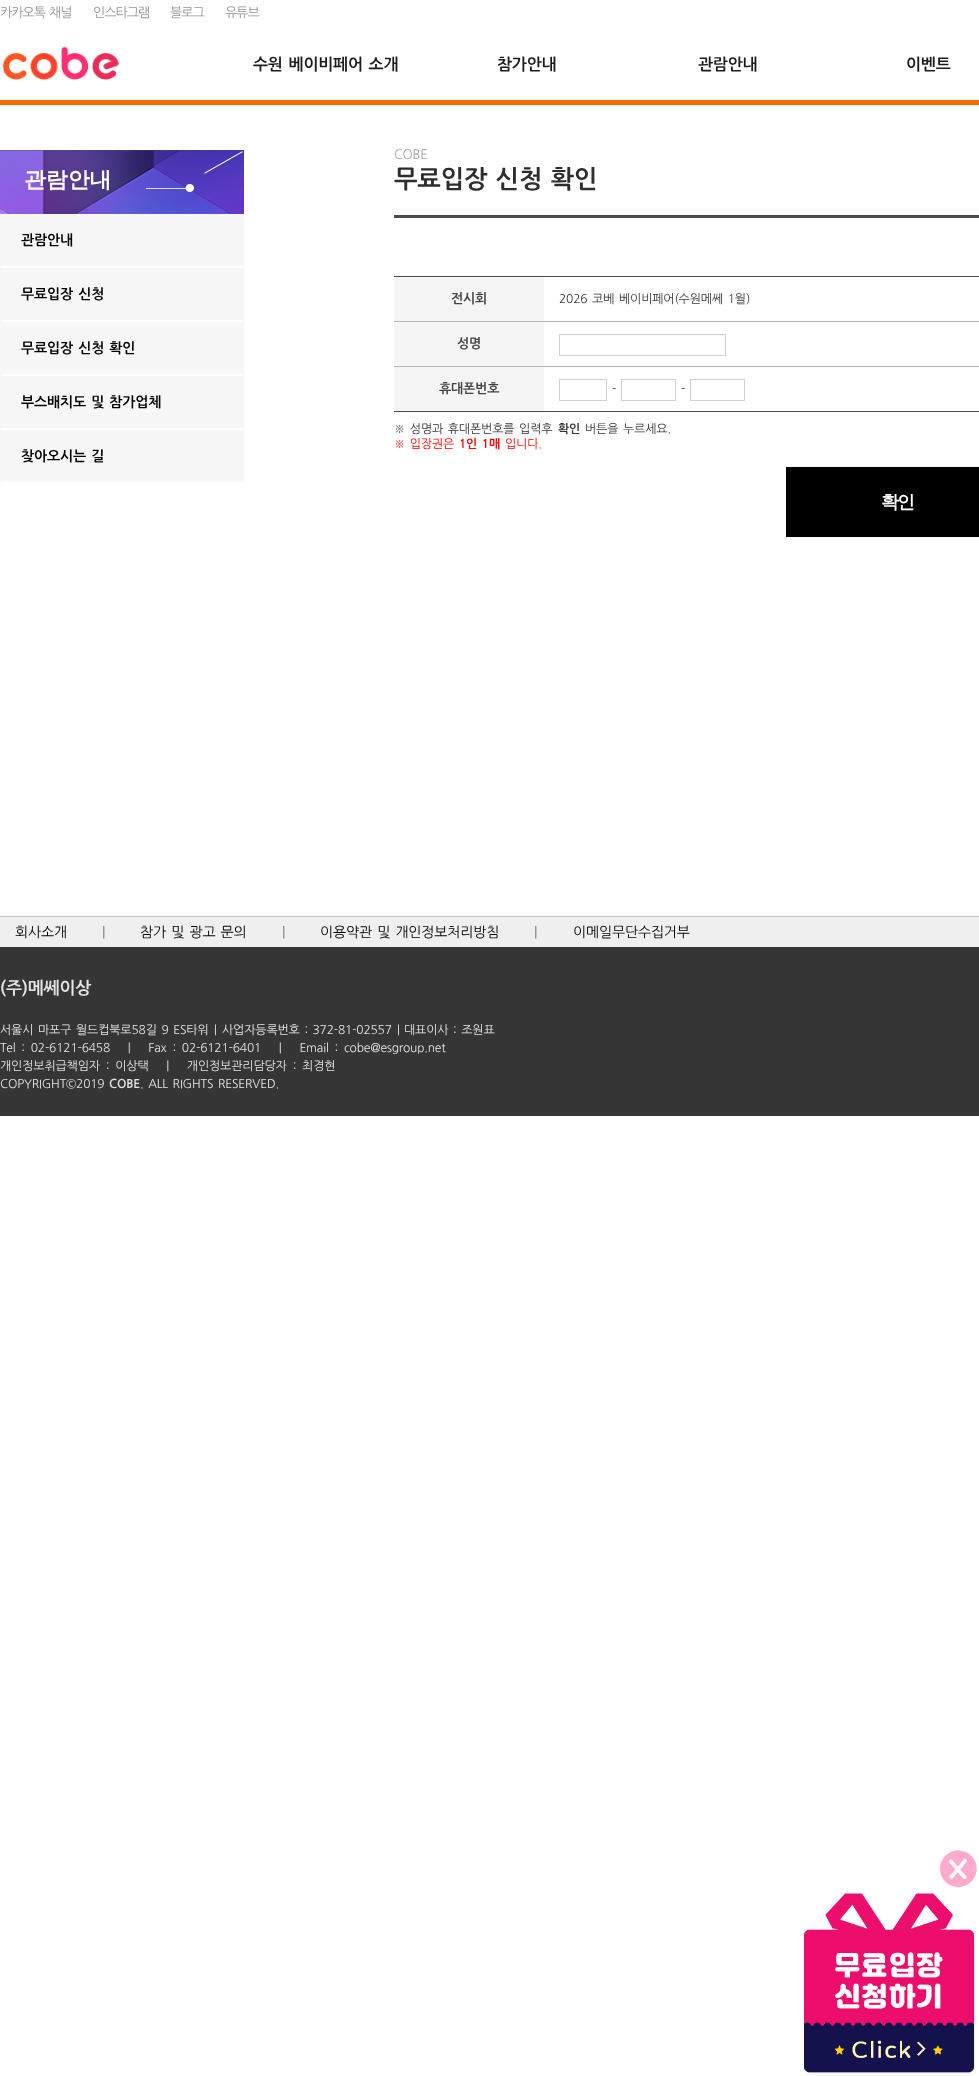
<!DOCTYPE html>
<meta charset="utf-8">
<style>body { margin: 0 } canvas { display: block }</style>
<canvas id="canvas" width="979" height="2076"></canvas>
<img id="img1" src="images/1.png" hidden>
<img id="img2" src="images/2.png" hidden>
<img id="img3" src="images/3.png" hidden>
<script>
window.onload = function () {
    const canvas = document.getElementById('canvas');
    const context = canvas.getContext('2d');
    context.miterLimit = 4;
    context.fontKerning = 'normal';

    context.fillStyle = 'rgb(255, 255, 255)';
    context.fillRect(0, 0, 979, 2076);
    context.fillStyle = 'rgb(252, 107, 0)';
    context.fillRect(0, 100, 979, 5);
    context.drawImage(document.getElementById('img1'), 2, 46, 117, 34);
    context.fillStyle = 'rgb(247, 247, 247)';
    context.fillRect(0, 214, 244, 270);
    context.drawImage(document.getElementById('img2'), 0, 150, 244, 64);
    context.fillStyle = 'rgb(255, 255, 255)';
    context.fillRect(1, 266, 242, 2);
    context.fillRect(1, 320, 242, 2);
    context.fillRect(1, 374, 242, 2);
    context.fillRect(1, 428, 242, 2);
    context.fillRect(1, 482, 242, 2);
    context.fillStyle = 'rgb(76, 76, 76)';
    context.fillRect(394, 215, 585, 3);
    context.fillStyle = 'rgb(73, 73, 73)';
    context.fillRect(394, 276, 585, 1);
    context.fillStyle = 'rgb(245, 245, 245)';
    context.fillRect(394, 277, 150, 44);
    context.fillStyle = 'rgb(180, 180, 180)';
    context.fillRect(394, 321, 585, 1);
    context.fillRect(394, 366, 585, 1);
    context.strokeStyle = 'rgb(210, 210, 210)';
    context.strokeRect(559.5, 334.5, 166, 21);
    context.fillStyle = 'rgb(245, 245, 245)';
    context.fillRect(394, 322, 150, 44);
    context.fillRect(394, 367, 150, 44);
    context.fillStyle = 'rgb(73, 73, 73)';
    context.fillRect(394, 411, 585, 1);
    context.strokeRect(559.5, 379.5, 47, 21);
    context.strokeRect(621.5, 379.5, 54, 21);
    context.strokeRect(690.5, 379.5, 54, 21);
    context.fillStyle = 'rgb(0, 0, 0)';
    context.fillRect(786, 467, 193, 70);
    context.fillStyle = 'rgb(54, 53, 53)';
    context.fillRect(0, 947, 979, 169);
    context.fillStyle = 'rgb(239, 239, 239)';
    context.fillRect(0, 917, 979, 30);
    context.fillStyle = 'rgb(195, 195, 195)';
    context.fillRect(0, 916, 979, 1);
    context.drawImage(document.getElementById('img3'), 804, 1850, 173, 223);
    context.letterSpacing = '-1px';
    context.wordSpacing = '1.5px';
    context.font = '13px NanumGothic';
    context.fillStyle = 'rgb(149, 149, 149)';
    context.fillText('카카오톡 채널', 0, 17);
    context.wordSpacing = '0px';
    context.fillText('인스타그램', 93, 17);
    context.fillText('블로그', 170, 17);
    context.fillText('유튜브', 225, 17);
    context.letterSpacing = '-0.18px';
    context.wordSpacing = '1.5px';
    context.font = 'bold 16px NanumGothic';
    context.fillStyle = 'rgb(28, 28, 28)';
    context.fillText('수원 베이비페어 소개', 253, 70);
    context.wordSpacing = '0px';
    context.fillText('참가안내', 497, 70);
    context.fillText('관람안내', 698, 70);
    context.fillText('이벤트', 906, 70);
    context.font = 'bold 22px WenQuanYi Zen Hei';
    context.fillStyle = 'rgb(255, 255, 255)';
    context.fillText('관람안내', 24, 187);
    context.font = 'bold 14px NanumGothic';
    context.fillStyle = 'rgb(0, 0, 0)';
    context.fillText('관람안내', 21, 245);
    context.wordSpacing = '1.5px';
    context.fillText('무료입장 신청', 21, 299);
    context.fillText('무료입장 신청 확인', 21, 353);
    context.fillText('부스배치도 및 참가업체', 21, 407);
    context.fillText('찾아오시는 길', 21, 461);
    context.wordSpacing = '0px';
    context.font = '13px NanumGothic';
    context.fillStyle = 'rgb(164, 164, 164)';
    context.fillText('COBE', 394, 159);
    context.wordSpacing = '1.5px';
    context.font = 'bold 25px NanumGothic';
    context.fillStyle = 'rgb(45, 45, 45)';
    context.fillText('무료입장 신청 확인', 394, 188);
    context.wordSpacing = '0px';
    context.font = 'bold 13px NanumGothic';
    context.fillStyle = 'rgb(67, 67, 67)';
    context.fillText('전시회', 451, 303);
    context.wordSpacing = '1.5px';
    context.font = '12px NanumGothic';
    context.fillStyle = 'rgb(53, 53, 53)';
    context.fillText('2026 코베 베이비페어(수원메쎄 1월)', 559, 303);
    context.wordSpacing = '0px';
    context.font = 'bold 13px NanumGothic';
    context.fillStyle = 'rgb(67, 67, 67)';
    context.fillText('성명', 457, 348);
    context.fillText('휴대폰번호', 439, 393);
    context.font = '12px NanumGothic';
    context.fillStyle = 'rgb(53, 53, 53)';
    context.fillText('-', 612, 393);
    context.fillText('-', 681, 393);
    context.wordSpacing = '1.5px';
    context.fillText('※ 성명과 휴대폰번호를 입력후', 394, 433);
    context.wordSpacing = '0px';
    context.font = 'bold 12px NanumGothic';
    context.fillText('확인', 558, 433);
    context.wordSpacing = '1.5px';
    context.font = '12px NanumGothic';
    context.fillText('버튼을 누르세요.', 585, 433);
    context.fillStyle = 'rgb(255, 0, 0)';
    context.fillText('※ 입장권은', 394, 448);
    context.font = 'bold 12px NanumGothic';
    context.fillText('1인 1매', 459, 448);
    context.wordSpacing = '0px';
    context.font = '12px NanumGothic';
    context.fillText('입니다.', 505, 448);
    context.letterSpacing = '-2px';
    context.font = 'bold 18px WenQuanYi Zen Hei';
    context.fillStyle = 'rgb(255, 255, 255)';
    context.fillText('확인', 881, 508);
    context.letterSpacing = '-0.18px';
    context.font = '14px NanumGothic';
    context.fillStyle = 'rgb(0, 0, 0)';
    context.fillText('회사소개', 15, 937);
    context.fillStyle = 'rgb(117, 116, 116)';
    context.fillText('|', 102, 937);
    context.wordSpacing = '1.5px';
    context.fillStyle = 'rgb(0, 0, 0)';
    context.fillText('참가 및 광고 문의', 140, 937);
    context.wordSpacing = '0px';
    context.fillStyle = 'rgb(117, 116, 116)';
    context.fillText('|', 282, 937);
    context.wordSpacing = '1.5px';
    context.fillStyle = 'rgb(0, 0, 0)';
    context.fillText('이용약관 및 개인정보처리방침', 320, 937);
    context.wordSpacing = '0px';
    context.fillStyle = 'rgb(117, 116, 116)';
    context.fillText('|', 534, 937);
    context.fillStyle = 'rgb(0, 0, 0)';
    context.fillText('이메일무단수집거부', 573, 937);
    context.font = 'bold 17px NanumGothic';
    context.fillStyle = 'rgb(228, 228, 228)';
    context.fillText('(주)메쎄이상', 0, 994);
    context.wordSpacing = '1.5px';
    context.font = '12px NanumGothic';
    context.fillText('서울시 마포구 월드컵북로58길 9 ES타워', 0, 1034);
    context.wordSpacing = '0px';
    context.fillText('|', 214, 1034);
    context.wordSpacing = '1.5px';
    context.fillText('사업자등록번호 : 372-81-02557', 222, 1034);
    context.wordSpacing = '0px';
    context.fillText('|', 397, 1034);
    context.wordSpacing = '1.5px';
    context.fillText('대표이사 : 조원표', 404, 1034);
    context.wordSpacing = '2.75px';
    context.fillText('Tel : 02-6121-6458   |   Fax : 02-6121-6401   |   Email : cobe@esgroup.net', 0, 1052);
    context.fillText('개인정보취급책임자 : 이상택   |   개인정보관리담당자 : 최경현', 0, 1070);
    context.wordSpacing = '0px';
    context.fillText('COPYRIGHT©2019', 0, 1088);
    context.font = 'bold 12px NanumGothic';
    context.fillText('COBE', 109, 1088);
    context.wordSpacing = '1.5px';
    context.font = '12px NanumGothic';
    context.fillText('. ALL RIGHTS RESERVED.', 140, 1088);
};
</script>
